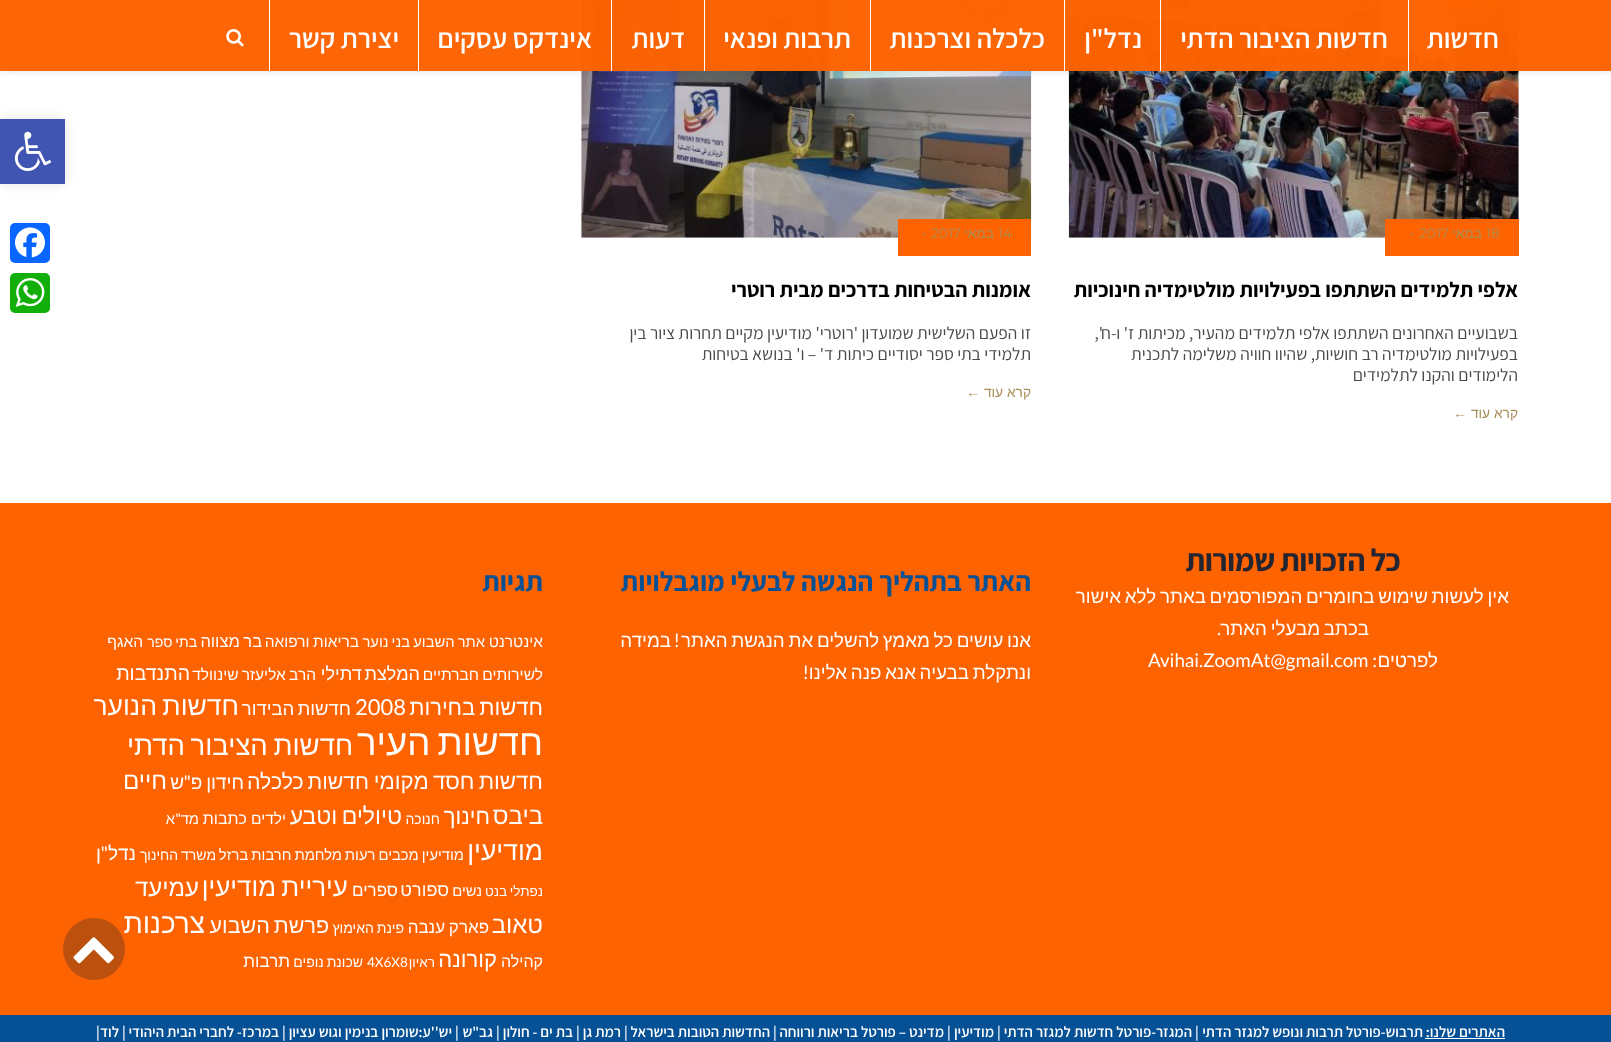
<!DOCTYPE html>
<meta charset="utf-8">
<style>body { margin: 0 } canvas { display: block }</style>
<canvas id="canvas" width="1611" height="1042"></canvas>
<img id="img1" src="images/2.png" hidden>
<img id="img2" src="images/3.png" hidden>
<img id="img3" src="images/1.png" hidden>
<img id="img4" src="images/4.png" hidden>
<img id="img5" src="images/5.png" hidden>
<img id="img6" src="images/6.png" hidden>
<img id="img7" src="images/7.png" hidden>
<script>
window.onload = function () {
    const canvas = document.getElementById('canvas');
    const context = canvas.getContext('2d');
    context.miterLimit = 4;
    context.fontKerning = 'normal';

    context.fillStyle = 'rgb(255, 255, 255)';
    context.fillRect(0, 0, 1611, 1042);
    context.drawImage(document.getElementById('img1'), 1068, 0, 451, 238);
    context.fillStyle = 'rgba(253, 99, 1, 0.8)';
    context.beginPath();
    context.roundRect(1445, -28, 55, 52, 27.5);
    context.fill();
    context.drawImage(document.getElementById('img2'), 581, 0, 451, 238);
    context.beginPath();
    context.roundRect(958, -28, 55, 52, 27.5);
    context.fill();
    context.save();
    context.beginPath();
    context.rect(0, 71, 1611, 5);
    context.clip();
    context.fillStyle = 'rgba(0, 0, 0, 0.1)';
    context.filter = 'blur(6px)';
    context.beginPath();
    context.rect(0, 0, 1611, 71);
    context.fill();
    context.filter = 'none';
    context.restore();
    context.fillStyle = 'rgba(253, 99, 1, 0.98)';
    context.fillRect(0, 0, 1611, 71);
    context.fillStyle = 'rgba(255, 255, 255, 0.98)';
    context.fillRect(1408, 0, 1, 71);
    context.fillRect(1160, 0, 1, 71);
    context.fillStyle = 'rgb(255, 255, 255)';
    context.fillRect(1064, 0, 1, 71);
    context.fillStyle = 'rgb(255, 252, 250)';
    context.fillRect(870, 0, 1, 71);
    context.fillRect(704, 0, 1, 71);
    context.fillRect(611, 0, 1, 71);
    context.fillStyle = 'rgb(255, 255, 255)';
    context.fillRect(418, 0, 1, 71);
    context.fillRect(269, 0, 1, 71);
    context.drawImage(document.getElementById('img3'), 226, 29, 18, 18);
    context.fillStyle = 'rgb(253, 99, 1)';
    context.fillRect(1385, 219, 134, 37);
    context.fillRect(898, 219, 133, 37);
    context.fillRect(0, 503, 1611, 512);
    context.fillStyle = 'rgb(6, 81, 150)';
    context.fillRect(0, 1015, 1611, 27);
    context.fillStyle = 'rgb(255, 255, 255)';
    context.fillRect(1425, 1038, 80, 1);
    context.fillStyle = 'rgba(0, 0, 0, 0.1)';
    context.filter = 'blur(6px)';
    context.beginPath();
    context.rect(0, 119, 65, 65);
    context.fill();
    context.filter = 'none';
    context.fillStyle = 'rgb(64, 84, 178)';
    context.fillRect(0, 119, 65, 65);
    context.drawImage(document.getElementById('img4'), 14, 131, 38, 40);
    context.fillStyle = 'rgb(8, 102, 255)';
    context.beginPath();
    context.roundRect(10, 223, 40, 40, 5);
    context.fill();
    context.drawImage(document.getElementById('img5'), 15, 227, 30, 31);
    context.fillStyle = 'rgb(18, 175, 10)';
    context.beginPath();
    context.roundRect(10, 273, 40, 40, 5);
    context.fill();
    context.drawImage(document.getElementById('img6'), 15, 278, 30, 29);
    context.direction = 'rtl';
    context.font = '600 27.5px Assistant';
    context.fillStyle = 'rgb(255, 255, 255)';
    context.fillText('חדשות', 1499, 48);
    context.fillText('חדשות הציבור הדתי', 1388, 48);
    context.fillText('נדל"ן', 1142, 48);
    context.fillText('כלכלה וצרכנות', 1045, 48);
    context.fillText('תרבות ופנאי', 851, 48);
    context.fillText('דעות', 685, 48);
    context.fillText('אינדקס עסקים', 592, 48);
    context.fillText('יצירת קשר', 399, 48);
    context.direction = 'ltr';
    context.font = '13.75px Montserrat';
    context.fillStyle = 'rgb(169, 142, 88)';
    context.fillText('18', 1486, 238);
    context.direction = 'rtl';
    context.font = '13.75px Liberation Sans';
    context.fillText('במאי', 1482, 238);
    context.direction = 'ltr';
    context.font = '13.75px Montserrat';
    context.fillText('2017', 1419, 238);
    context.fillText('•', 1410, 238);
    context.direction = 'rtl';
    context.font = 'bold 21.25px Assistant';
    context.fillStyle = 'rgb(0, 0, 0)';
    context.fillText('אלפי תלמידים השתתפו בפעילויות מולטימדיה חינוכיות', 1518, 297);
    context.font = '17.5px Assistant';
    context.fillStyle = 'rgb(73, 73, 73)';
    context.fillText('בשבועיים האחרונים השתתפו אלפי תלמידים מהעיר, מכיתות ז\' ו-ח\',', 1518, 339);
    context.fillText('בפעילויות מולטימדיה רב חושיות, שהיוו חוויה משלימה לתכנית', 1518, 360);
    context.fillText('הלימודים והקנו לתלמידים', 1518, 381);
    context.font = '13.75px Liberation Sans';
    context.fillStyle = 'rgb(169, 142, 88)';
    context.fillText('קרא עוד ←', 1518, 418);
    context.direction = 'ltr';
    context.font = '13.75px Montserrat';
    context.fillText('14', 998, 238);
    context.direction = 'rtl';
    context.font = '13.75px Liberation Sans';
    context.fillText('במאי', 994, 238);
    context.direction = 'ltr';
    context.font = '13.75px Montserrat';
    context.fillText('2017', 931, 238);
    context.fillText('•', 922, 238);
    context.direction = 'rtl';
    context.font = 'bold 21.25px Assistant';
    context.fillStyle = 'rgb(0, 0, 0)';
    context.fillText('אומנות הבטיחות בדרכים מבית רוטרי', 1031, 297);
    context.font = '17.5px Assistant';
    context.fillStyle = 'rgb(73, 73, 73)';
    context.fillText('זו הפעם השלישית שמועדון \'רוטרי\' מודיעין מקיים תחרות ציור בין', 1031, 339);
    context.fillText('תלמידי בתי ספר יסודיים כיתות ד\' – ו\' בנושא בטיחות', 1031, 360);
    context.font = '13.75px Liberation Sans';
    context.fillStyle = 'rgb(169, 142, 88)';
    context.fillText('קרא עוד ←', 1031, 397);
    context.letterSpacing = '-0.6px';
    context.font = 'bold 31.25px Assistant';
    context.fillStyle = 'rgb(37, 37, 49)';
    context.fillText('כל הזכויות שמורות', 1400, 571);
    context.letterSpacing = '0px';
    context.wordSpacing = '-1.5px';
    context.font = '18.75px Liberation Sans';
    context.fillStyle = 'rgb(255, 255, 255)';
    context.fillText('אין לעשות שימוש בחומרים המפורסמים באתר ללא אישור', 1509, 603);
    context.fillText('בכתב מבעלי האתר', 1369, 635);
    context.wordSpacing = '0px';
    context.font = '18.75px Lato';
    context.fillText('.', 1221, 635);
    context.font = '18.75px Liberation Sans';
    context.fillText('לפרטים', 1438, 667);
    context.font = '18.75px Lato';
    context.fillText(':', 1377, 667);
    context.direction = 'ltr';
    context.fillText('Avihai.ZoomAt@gmail.com', 1148, 667);
    context.direction = 'rtl';
    context.font = 'bold 27.5px Assistant';
    context.fillStyle = 'rgb(6, 81, 150)';
    context.fillText('האתר בתהליך הנגשה לבעלי מוגבלויות', 1031, 591);
    context.wordSpacing = '-1.5px';
    context.font = '18.75px Liberation Sans';
    context.fillStyle = 'rgb(255, 255, 255)';
    context.fillText('אנו עושים כל מאמץ להשלים את הנגשת האתר', 1031, 647);
    context.wordSpacing = '0px';
    context.font = '18.75px Lato';
    context.fillText('!', 680, 647);
    context.font = '18.75px Liberation Sans';
    context.fillText('במידה', 671, 647);
    context.wordSpacing = '-1.5px';
    context.fillText('ונתקלת בבעיה אנא פנה אלינו', 1031, 679);
    context.wordSpacing = '0px';
    context.font = '18.75px Lato';
    context.fillText('!', 809, 679);
    context.font = 'bold 27.5px Assistant';
    context.fillStyle = 'rgb(6, 81, 150)';
    context.fillText('תגיות', 543, 591);
    context.font = '15.5px Liberation Sans';
    context.fillStyle = 'rgb(255, 255, 255)';
    context.fillText('אינטרנט', 543, 647);
    context.wordSpacing = '-1px';
    context.font = '14.75px Liberation Sans';
    context.fillText('אתר השבוע', 485, 647);
    context.fillText('בני נוער', 410, 647);
    context.font = '15.5px Liberation Sans';
    context.fillText('בריאות ורפואה', 359, 647);
    context.font = '16.5px Liberation Sans';
    context.fillText('בר מצווה', 262, 647);
    context.font = '14px Liberation Sans';
    context.fillText('בתי ספר', 197, 647);
    context.wordSpacing = '0px';
    context.font = '15.5px Liberation Sans';
    context.fillText('האגף', 143, 647);
    context.wordSpacing = '-1px';
    context.fillText('לשירותים חברתיים', 543, 680);
    context.wordSpacing = '-2px';
    context.font = '18px Liberation Sans';
    context.fillText('המלצת דתילי', 420, 680);
    context.wordSpacing = '-1px';
    context.font = '15.5px Liberation Sans';
    context.fillText('הרב אליעזר שינוולד', 316, 680);
    context.wordSpacing = '0px';
    context.font = '19.5px Liberation Sans';
    context.fillText('התנדבות', 190, 680);
    context.wordSpacing = '-2px';
    context.font = '22px Liberation Sans';
    context.fillText('חדשות בחירות', 543, 715);
    context.wordSpacing = '0px';
    context.direction = 'ltr';
    context.font = '22px Lato';
    context.fillText('2008', 355, 715);
    context.wordSpacing = '-2px';
    context.direction = 'rtl';
    context.font = '18.5px Liberation Sans';
    context.fillText('חדשות הבידור', 351, 715);
    context.font = '26.5px Liberation Sans';
    context.fillText('חדשות הנוער', 239, 715);
    context.wordSpacing = '-3px';
    context.font = '36.5px Liberation Sans';
    context.fillText('חדשות העיר', 543, 755);
    context.wordSpacing = '-2px';
    context.font = '27.5px Liberation Sans';
    context.fillText('חדשות הציבור הדתי', 353, 755);
    context.font = '22.25px Liberation Sans';
    context.fillText('חדשות חסד מקומי', 543, 789);
    context.font = '21.25px Liberation Sans';
    context.fillText('חדשות כלכלה', 369, 789);
    context.wordSpacing = '-1.5px';
    context.font = '19px Liberation Sans';
    context.fillText('חידון פ', 244, 789);
    context.wordSpacing = '0px';
    context.font = '19px Lato';
    context.fillText('"', 191, 789);
    context.font = '19px Liberation Sans';
    context.fillText('ש', 184, 789);
    context.font = '24px Liberation Sans';
    context.fillText('חיים', 167, 789);
    context.fillText('ביבס', 543, 824);
    context.font = '22px Liberation Sans';
    context.fillText('חינוך', 490, 824);
    context.font = '14px Liberation Sans';
    context.fillText('חנוכה', 440, 824);
    context.wordSpacing = '-2px';
    context.font = '23px Liberation Sans';
    context.fillText('טיולים וטבע', 402, 824);
    context.wordSpacing = '0px';
    context.font = '15.5px Liberation Sans';
    context.fillText('ילדים', 286, 824);
    context.font = '16px Liberation Sans';
    context.fillText('כתבות', 247, 824);
    context.font = '14.75px Liberation Sans';
    context.fillText('מד', 199, 824);
    context.font = '14.75px Lato';
    context.fillText('"', 181, 824);
    context.font = '14.75px Liberation Sans';
    context.fillText('א', 175, 824);
    context.font = '26.5px Liberation Sans';
    context.fillText('מודיעין', 543, 860);
    context.wordSpacing = '-1px';
    context.font = '14.75px Liberation Sans';
    context.fillText('מודיעין מכבים רעות', 464, 860);
    context.fillText('מלחמת חרבות ברזל', 342, 860);
    context.font = '14px Liberation Sans';
    context.fillText('משרד החינוך', 216, 860);
    context.wordSpacing = '0px';
    context.font = '19px Liberation Sans';
    context.fillText('נדל', 136, 860);
    context.font = '19px Lato';
    context.fillText('"', 108, 860);
    context.font = '19px Liberation Sans';
    context.fillText('ן', 101, 860);
    context.wordSpacing = '-1px';
    context.font = '13.5px Liberation Sans';
    context.fillText('נפתלי בנט', 543, 896);
    context.wordSpacing = '0px';
    context.font = '14.75px Liberation Sans';
    context.fillText('נשים', 482, 896);
    context.font = '18px Liberation Sans';
    context.fillText('ספורט', 449, 896);
    context.font = '17px Liberation Sans';
    context.fillText('ספרים', 398, 896);
    context.wordSpacing = '-2px';
    context.font = '26px Liberation Sans';
    context.fillText('עיריית מודיעין', 348, 896);
    context.wordSpacing = '0px';
    context.font = '24px Liberation Sans';
    context.fillText('עמיעד', 199, 896);
    context.fillText('טאוב', 543, 933);
    context.wordSpacing = '-1px';
    context.font = '17px Liberation Sans';
    context.fillText('פארק ענבה', 489, 933);
    context.font = '14px Liberation Sans';
    context.fillText('פינת האימוץ', 404, 933);
    context.wordSpacing = '-2px';
    context.font = '21.5px Liberation Sans';
    context.fillText('פרשת השבוע', 329, 933);
    context.wordSpacing = '0px';
    context.font = '28px Liberation Sans';
    context.fillText('צרכנות', 205, 933);
    context.font = '16px Liberation Sans';
    context.fillText('קהילה', 543, 967);
    context.font = '22px Liberation Sans';
    context.fillText('קורונה', 497, 967);
    context.font = '13.5px Liberation Sans';
    context.fillText('ראיון', 435, 967);
    context.direction = 'ltr';
    context.font = '13.5px Lato';
    context.fillText('4X6X8', 367, 967);
    context.wordSpacing = '-1px';
    context.direction = 'rtl';
    context.font = '14px Liberation Sans';
    context.fillText('שכונת נופים', 363, 967);
    context.wordSpacing = '0px';
    context.font = '17px Liberation Sans';
    context.fillText('תרבות', 290, 967);
    context.font = '600 15px Assistant';
    context.fillText('האתרים שלנו:', 1505, 1037);
    context.fillText('תרבוש-פורטל תרבות ונופש למגזר הדתי', 1423, 1037);
    context.direction = 'ltr';
    context.fillText('|', 1195, 1037);
    context.direction = 'rtl';
    context.fillText('המגזר-פורטל חדשות למגזר הדתי', 1192, 1037);
    context.direction = 'ltr';
    context.fillText('|', 997, 1037);
    context.direction = 'rtl';
    context.fillText('מודיעין', 994, 1037);
    context.direction = 'ltr';
    context.fillText('|', 947, 1037);
    context.direction = 'rtl';
    context.fillText('מדינט – פורטל בריאות ורווחה', 944, 1037);
    context.direction = 'ltr';
    context.fillText('|', 773, 1037);
    context.direction = 'rtl';
    context.fillText('החדשות הטובות בישראל', 770, 1037);
    context.direction = 'ltr';
    context.fillText('|', 624, 1037);
    context.direction = 'rtl';
    context.fillText('רמת גן', 621, 1037);
    context.direction = 'ltr';
    context.fillText('|', 576, 1037);
    context.direction = 'rtl';
    context.fillText('בת ים - חולון', 573, 1037);
    context.direction = 'ltr';
    context.fillText('|', 496, 1037);
    context.direction = 'rtl';
    context.fillText('גב"ש', 493, 1037);
    context.direction = 'ltr';
    context.fillText('|', 455, 1037);
    context.direction = 'rtl';
    context.fillText('יש\'\'ע:שומרון בנימין וגוש עציון', 452, 1037);
    context.direction = 'ltr';
    context.fillText('|', 282, 1037);
    context.direction = 'rtl';
    context.fillText('במרכז- לחברי הבית היהודי', 279, 1037);
    context.direction = 'ltr';
    context.fillText('|', 122, 1037);
    context.direction = 'rtl';
    context.fillText('לוד', 119, 1037);
    context.direction = 'ltr';
    context.fillText('|', 96, 1037);
    context.fillStyle = 'rgb(188, 80, 15)';
    context.beginPath();
    context.arc(94, 949, 31, 0, 2 * Math.PI);
    context.fill();
    context.drawImage(document.getElementById('img7'), 73, 937, 41, 27);
};
</script>
